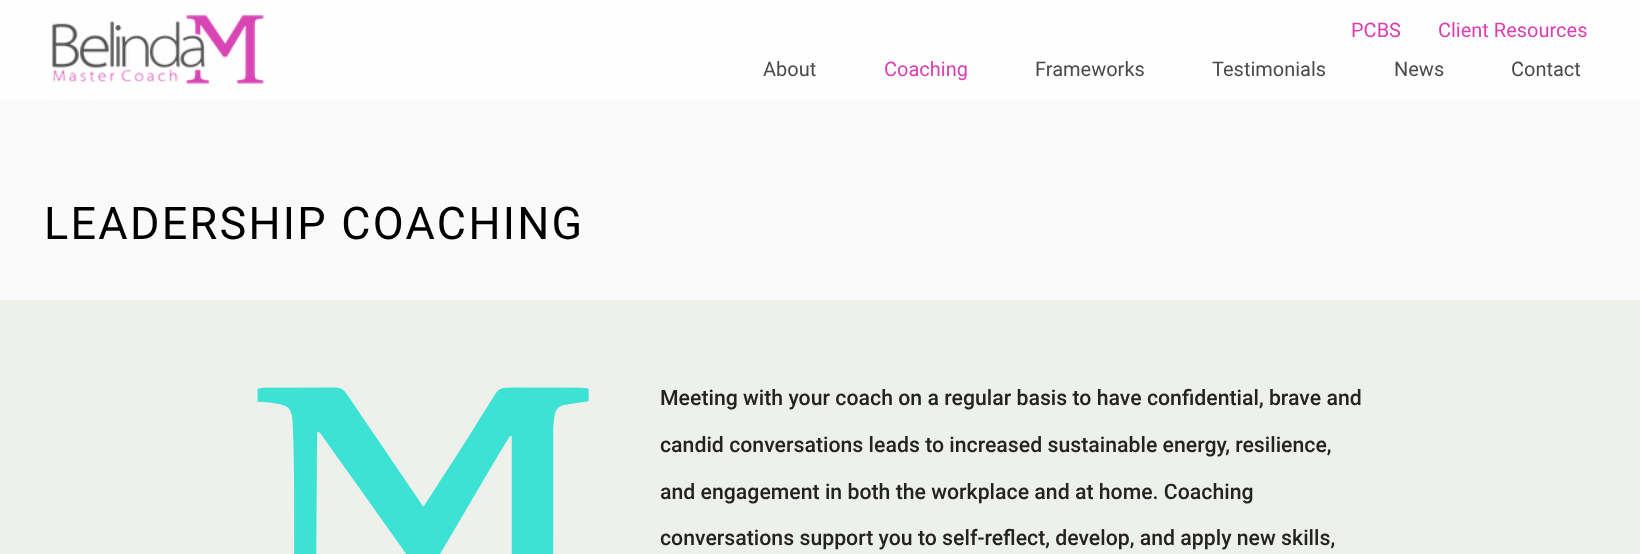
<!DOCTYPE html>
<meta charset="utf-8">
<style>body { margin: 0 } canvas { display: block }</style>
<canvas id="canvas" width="1640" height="554"></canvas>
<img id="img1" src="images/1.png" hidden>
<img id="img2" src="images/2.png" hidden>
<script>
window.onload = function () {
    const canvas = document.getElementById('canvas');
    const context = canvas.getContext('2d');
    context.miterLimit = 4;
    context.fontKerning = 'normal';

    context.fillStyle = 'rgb(237, 240, 235)';
    context.fillRect(0, 0, 1640, 554);
    context.fillStyle = 'rgb(254, 254, 254)';
    context.fillRect(0, 0, 1640, 100);
    context.drawImage(document.getElementById('img1'), 51, 14, 213, 70);
    context.fillStyle = 'rgb(250, 250, 250)';
    context.fillRect(0, 100, 1640, 200);
    context.drawImage(document.getElementById('img2'), 257, 387, 332, 167);
    context.font = '20px Roboto';
    context.fillStyle = 'rgb(219, 62, 177)';
    context.fillText('PCBS', 1351, 37);
    context.fillText('Client Resources', 1438, 37);
    context.fillStyle = 'rgb(74, 74, 74)';
    context.fillText('About', 763, 76);
    context.fillStyle = 'rgb(219, 62, 177)';
    context.fillText('Coaching', 884, 76);
    context.fillStyle = 'rgb(74, 74, 74)';
    context.fillText('Frameworks', 1035, 76);
    context.fillText('Testimonials', 1212, 76);
    context.fillText('News', 1394, 76);
    context.fillText('Contact', 1511, 76);
    context.letterSpacing = '2.25px';
    context.font = '45px Roboto';
    context.fillStyle = 'rgb(0, 0, 0)';
    context.fillText('LEADERSHIP COACHING', 44, 239);
    context.letterSpacing = '0px';
    context.font = '500 21.25px Roboto';
    context.fillStyle = 'rgb(36, 35, 35)';
    context.fillText('Meeting with your coach on a regular basis to have confidential, brave and', 660, 405);
    context.fillText('candid conversations leads to increased sustainable energy, resilience,', 660, 452);
    context.fillText('and engagement in both the workplace and at home. Coaching', 660, 499);
    context.fillText('conversations support you to self-reflect, develop, and apply new skills,', 660, 545);
};
</script>
